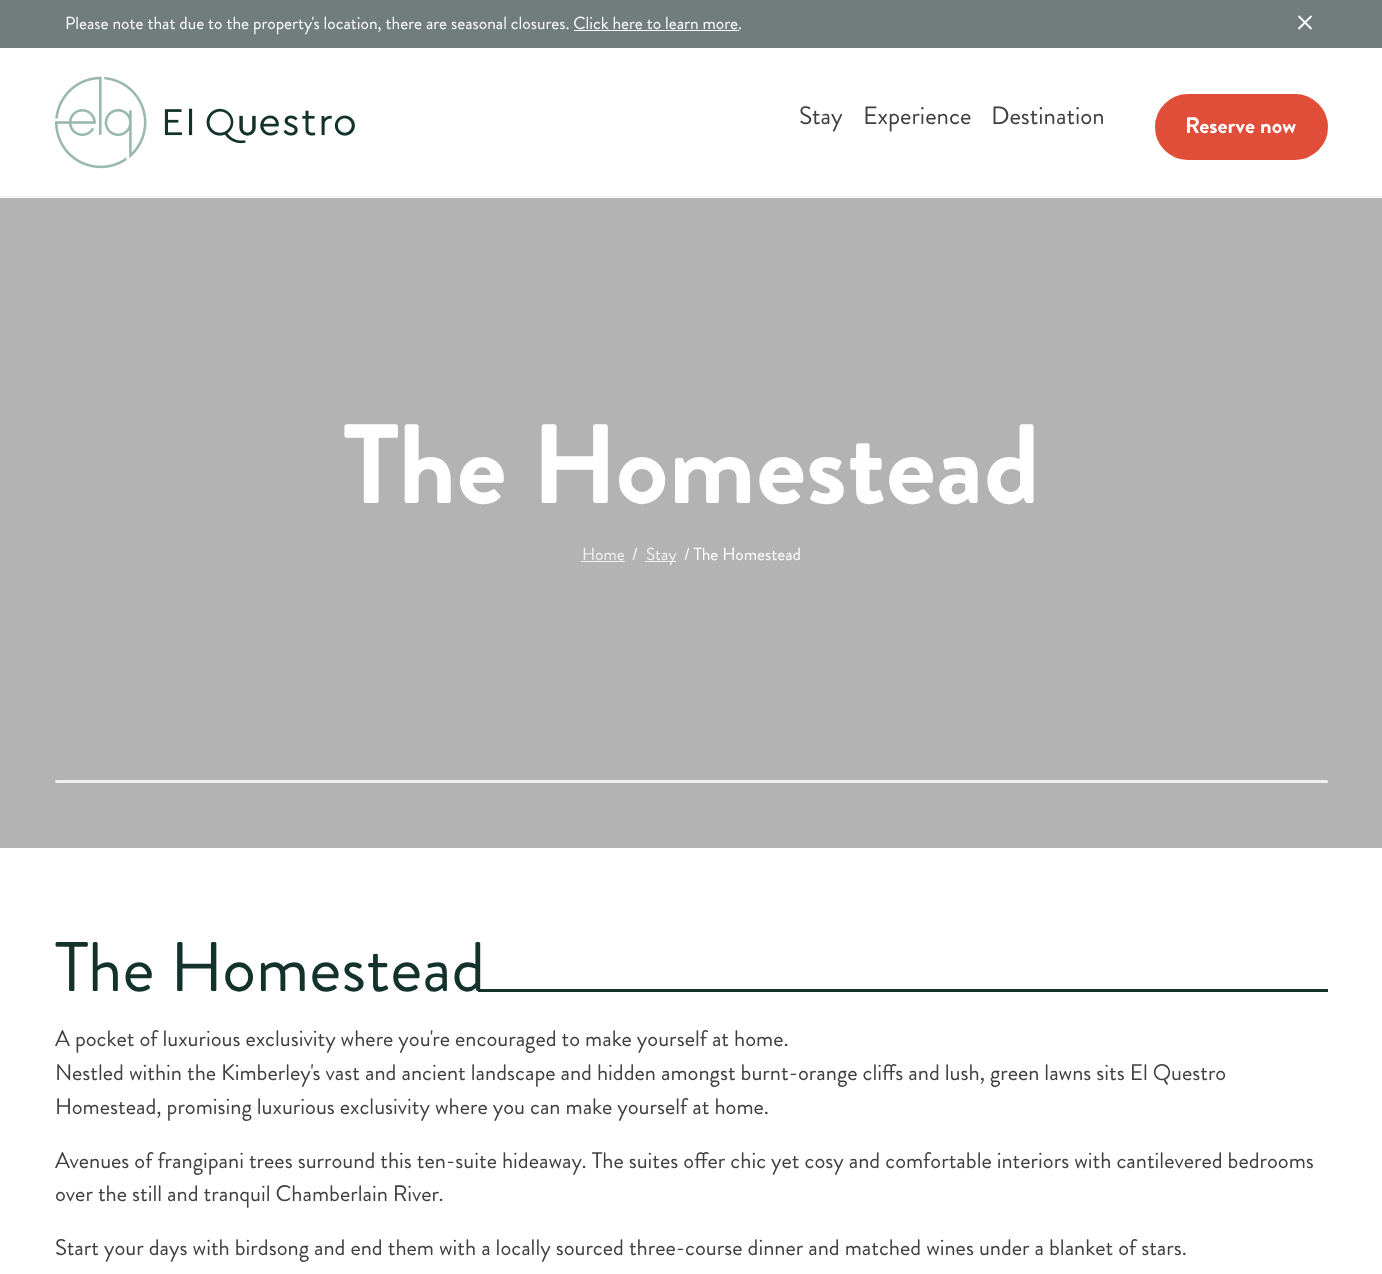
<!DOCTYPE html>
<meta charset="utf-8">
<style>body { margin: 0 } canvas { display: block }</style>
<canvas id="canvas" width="1382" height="1274"></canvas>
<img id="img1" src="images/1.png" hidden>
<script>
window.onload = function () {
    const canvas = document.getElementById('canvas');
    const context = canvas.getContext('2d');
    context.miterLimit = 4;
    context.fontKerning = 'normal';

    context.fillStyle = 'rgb(255, 255, 255)';
    context.fillRect(0, 0, 1382, 1274);
    context.fillStyle = 'rgb(113, 124, 125)';
    context.fillRect(0, 0, 1382, 48);
    context.fillStyle = 'rgb(255, 255, 255)';
    context.fillRect(574, 30, 165, 1);
    context.beginPath();
    context.moveTo(1298.5, 29);
    context.lineTo(1311.5, 16);
    context.moveTo(1298.5, 16);
    context.lineTo(1311.5, 29);
    context.strokeStyle = 'rgb(255, 255, 255)';
    context.lineWidth = 1.9;
    context.stroke();
    context.fillStyle = 'rgb(240, 240, 240)';
    context.fillRect(0, 196, 1382, 1);
    context.drawImage(document.getElementById('img1'), 55, 76, 300, 93);
    context.fillStyle = 'rgb(224, 78, 57)';
    context.beginPath();
    context.roundRect(1156.5, 95.5, 170, 63, 31.5);
    context.fill();
    context.strokeStyle = 'rgb(224, 78, 57)';
    context.lineWidth = 3;
    context.stroke();
    context.fillStyle = 'rgb(179, 179, 179)';
    context.fillRect(0, 198, 1382, 650);
    context.fillStyle = 'rgb(240, 240, 240)';
    context.fillRect(581, 561, 44, 1);
    context.fillRect(645, 561, 31, 1);
    context.beginPath();
    context.roundRect(55, 780, 1273, 3, 1.5);
    context.fill();
    context.fillStyle = 'rgb(19, 50, 43)';
    context.fillRect(478, 989, 850, 3);
    context.font = '17.5px Brandon Grotesque';
    context.fillStyle = 'rgb(255, 255, 255)';
    context.fillText('Please note that due to the property\'s location, there are seasonal closures. Click here to learn more.', 65, 29);
    context.font = '25px Brandon Grotesque';
    context.fillStyle = 'rgb(65, 64, 65)';
    context.fillText('Stay', 799, 124);
    context.fillText('Experience', 863, 124);
    context.fillText('Destination', 991, 124);
    context.font = 'bold 22.5px Brandon Grotesque';
    context.fillStyle = 'rgb(255, 255, 255)';
    context.fillText('Reserve now', 1185, 133);
    context.font = 'bold 112.5px Brandon Grotesque';
    context.fillText('The Homestead', 343, 503);
    context.font = '17.5px Brandon Grotesque';
    context.fillStyle = 'rgb(240, 240, 240)';
    context.fillText('Home', 582, 560);
    context.fillStyle = 'rgb(255, 255, 255)';
    context.fillText('/', 632, 560);
    context.fillStyle = 'rgb(240, 240, 240)';
    context.fillText('Stay', 646, 560);
    context.fillStyle = 'rgb(255, 255, 255)';
    context.fillText('/ The Homestead', 684, 560);
    context.font = '70px Brandon Grotesque';
    context.fillStyle = 'rgb(19, 50, 43)';
    context.fillText('The Homestead', 55, 991);
    context.font = '22.5px Brandon Grotesque';
    context.fillStyle = 'rgb(65, 64, 65)';
    context.fillText('A pocket of luxurious exclusivity where you\'re encouraged to make yourself at home.', 55, 1046);
    context.fillText('Nestled within the Kimberley\'s vast and ancient landscape and hidden amongst burnt-orange cliffs and lush, green lawns sits El Questro', 55, 1080);
    context.fillText('Homestead, promising luxurious exclusivity where you can make yourself at home.', 55, 1114);
    context.fillText('Avenues of frangipani trees surround this ten-suite hideaway. The suites offer chic yet cosy and comfortable interiors with cantilevered bedrooms', 55, 1168);
    context.fillText('over the still and tranquil Chamberlain River.', 55, 1201);
    context.fillText('Start your days with birdsong and end them with a locally sourced three-course dinner and matched wines under a blanket of stars.', 55, 1255);
};
</script>
